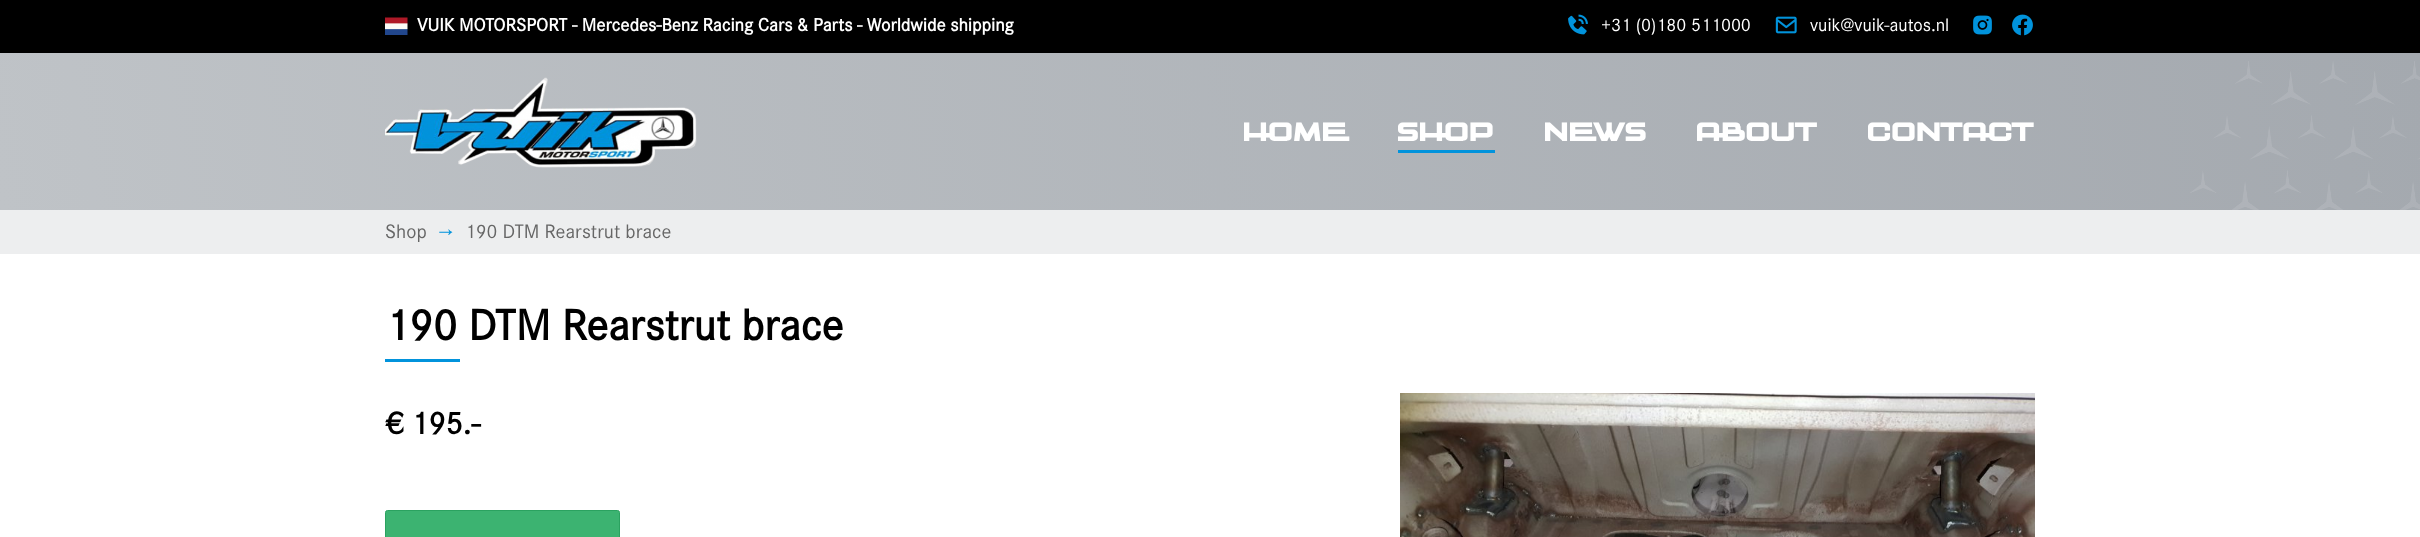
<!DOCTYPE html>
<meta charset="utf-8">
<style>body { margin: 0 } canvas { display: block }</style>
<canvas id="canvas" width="2420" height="537"></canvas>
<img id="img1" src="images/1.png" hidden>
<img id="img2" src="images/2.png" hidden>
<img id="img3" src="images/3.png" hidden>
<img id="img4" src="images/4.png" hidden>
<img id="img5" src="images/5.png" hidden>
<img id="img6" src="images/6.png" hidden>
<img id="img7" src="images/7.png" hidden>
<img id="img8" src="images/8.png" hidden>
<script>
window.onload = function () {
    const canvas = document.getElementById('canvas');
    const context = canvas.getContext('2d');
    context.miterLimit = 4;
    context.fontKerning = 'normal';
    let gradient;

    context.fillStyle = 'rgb(255, 255, 255)';
    context.fillRect(0, 0, 2420, 537);
    context.fillStyle = 'rgb(0, 0, 0)';
    context.fillRect(0, 0, 2420, 53);
    context.drawImage(document.getElementById('img1'), 385, 17, 23, 18);
    context.drawImage(document.getElementById('img2'), 1568, 14, 20, 21);
    context.drawImage(document.getElementById('img3'), 1775, 16, 22, 18);
    context.drawImage(document.getElementById('img4'), 1973, 15, 19, 20);
    context.drawImage(document.getElementById('img5'), 2012, 14, 21, 22);
    gradient = context.createLinearGradient(23, 341, 2397, -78);
    gradient.addColorStop(0, 'rgb(191, 195, 199)');
    gradient.addColorStop(1, 'rgb(164, 169, 175)');
    context.fillStyle = gradient;
    context.fillRect(0, 53, 2420, 157);
    context.drawImage(document.getElementById('img6'), 385, 77, 312, 91);
    context.fillStyle = 'rgb(1, 147, 220)';
    context.fillRect(1398, 150, 97, 3);
    context.drawImage(document.getElementById('img7'), 2190, 61, 230, 149);
    context.fillStyle = 'rgb(237, 238, 239)';
    context.fillRect(0, 210, 2420, 44);
    context.fillStyle = 'rgb(1, 147, 220)';
    context.fillRect(385, 359, 75, 3);
    context.fillStyle = 'rgb(60, 179, 113)';
    context.beginPath();
    context.roundRect(385.5, 510.5, 234, 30, 2);
    context.fill();
    context.strokeStyle = 'rgb(43, 162, 96)';
    context.stroke();
    context.drawImage(document.getElementById('img8'), 1400, 393, 635, 144);
    context.font = 'bold 18.75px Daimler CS';
    context.fillStyle = 'rgb(255, 255, 255)';
    context.fillText('VUIK MOTORSPORT - Mercedes-Benz Racing Cars & Parts - Worldwide shipping', 417, 31);
    context.font = '18.75px Daimler CS';
    context.fillText('+31 (0)180 511000', 1601, 31);
    context.fillText('vuik@vuik-autos.nl', 1810, 31);
    context.font = 'bold 35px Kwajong';
    context.fillText('HOME', 1244, 141);
    context.fillText('SHOP', 1398, 141);
    context.fillText('NEWS', 1545, 141);
    context.fillText('ABOUT', 1697, 141);
    context.fillText('CONTACT', 1868, 141);
    context.font = '20.25px Daimler CS';
    context.fillStyle = 'rgb(102, 102, 102)';
    context.fillText('Shop', 385, 238);
    context.fillStyle = 'rgb(1, 147, 220)';
    context.fillText('→', 439, 239);
    context.fillStyle = 'rgb(102, 102, 102)';
    context.fillText('190 DTM Rearstrut brace', 465, 238);
    context.font = 'bold 45px Daimler CS';
    context.fillStyle = 'rgb(0, 0, 0)';
    context.fillText('190 DTM Rearstrut brace', 385, 340);
    context.font = 'bold 32.5px Daimler CS';
    context.fillText('€ 195.-', 385, 434);
};
</script>
